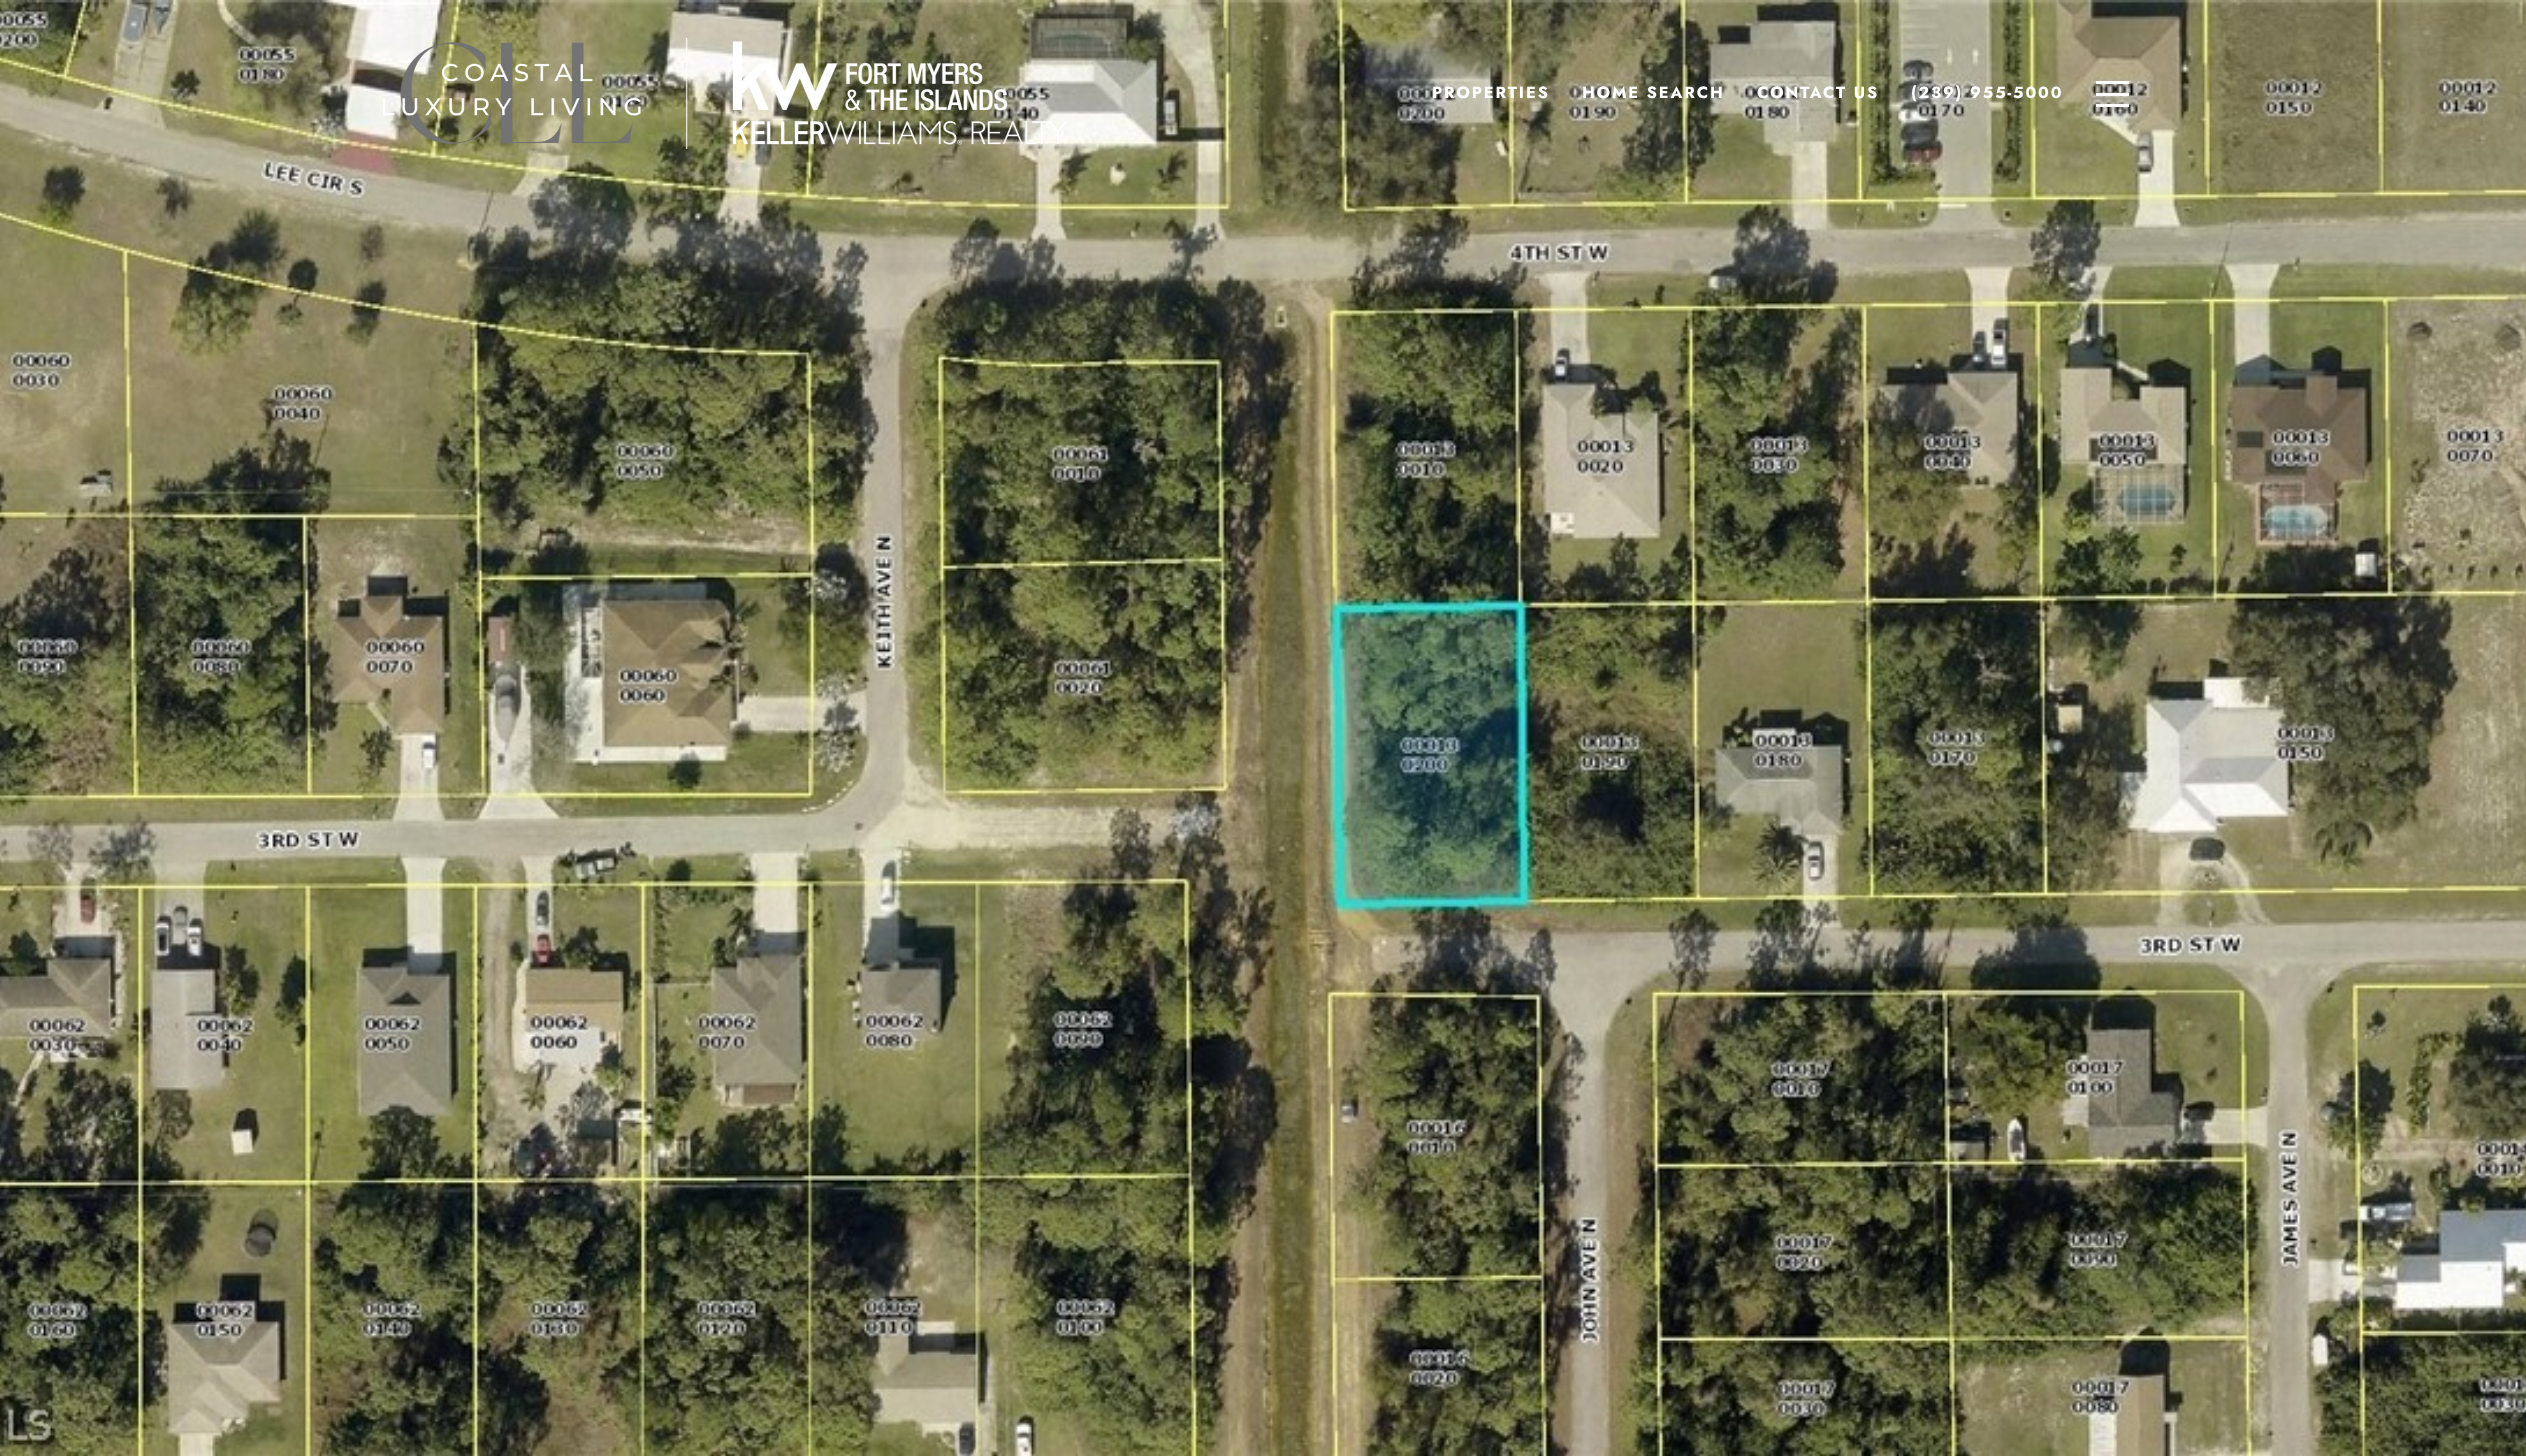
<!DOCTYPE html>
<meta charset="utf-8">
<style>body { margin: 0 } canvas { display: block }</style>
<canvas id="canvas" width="2526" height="1456"></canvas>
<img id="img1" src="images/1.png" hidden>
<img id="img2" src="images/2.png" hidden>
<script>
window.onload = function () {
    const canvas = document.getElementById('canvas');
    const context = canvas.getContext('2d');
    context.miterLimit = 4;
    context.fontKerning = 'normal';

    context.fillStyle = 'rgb(255, 255, 255)';
    context.fillRect(0, 0, 2526, 1456);
    context.drawImage(document.getElementById('img1'), 0, 0, 2526, 1456);
    context.drawImage(document.getElementById('img2'), 383, 38, 684, 111);
    context.fillRect(2096, 93, 33, 3);
    context.fillRect(2096, 81, 33, 3);
    context.fillRect(2096, 104, 33, 3);
    context.letterSpacing = '1.9px';
    context.font = 'bold 16.25px Jost';
    context.fillText('PROPERTIES', 1432, 98);
    context.fillText('HOME SEARCH', 1582, 98);
    context.fillText('CONTACT US', 1757, 98);
    context.fillText('(239) 955-5000', 1911, 98);
};
</script>
